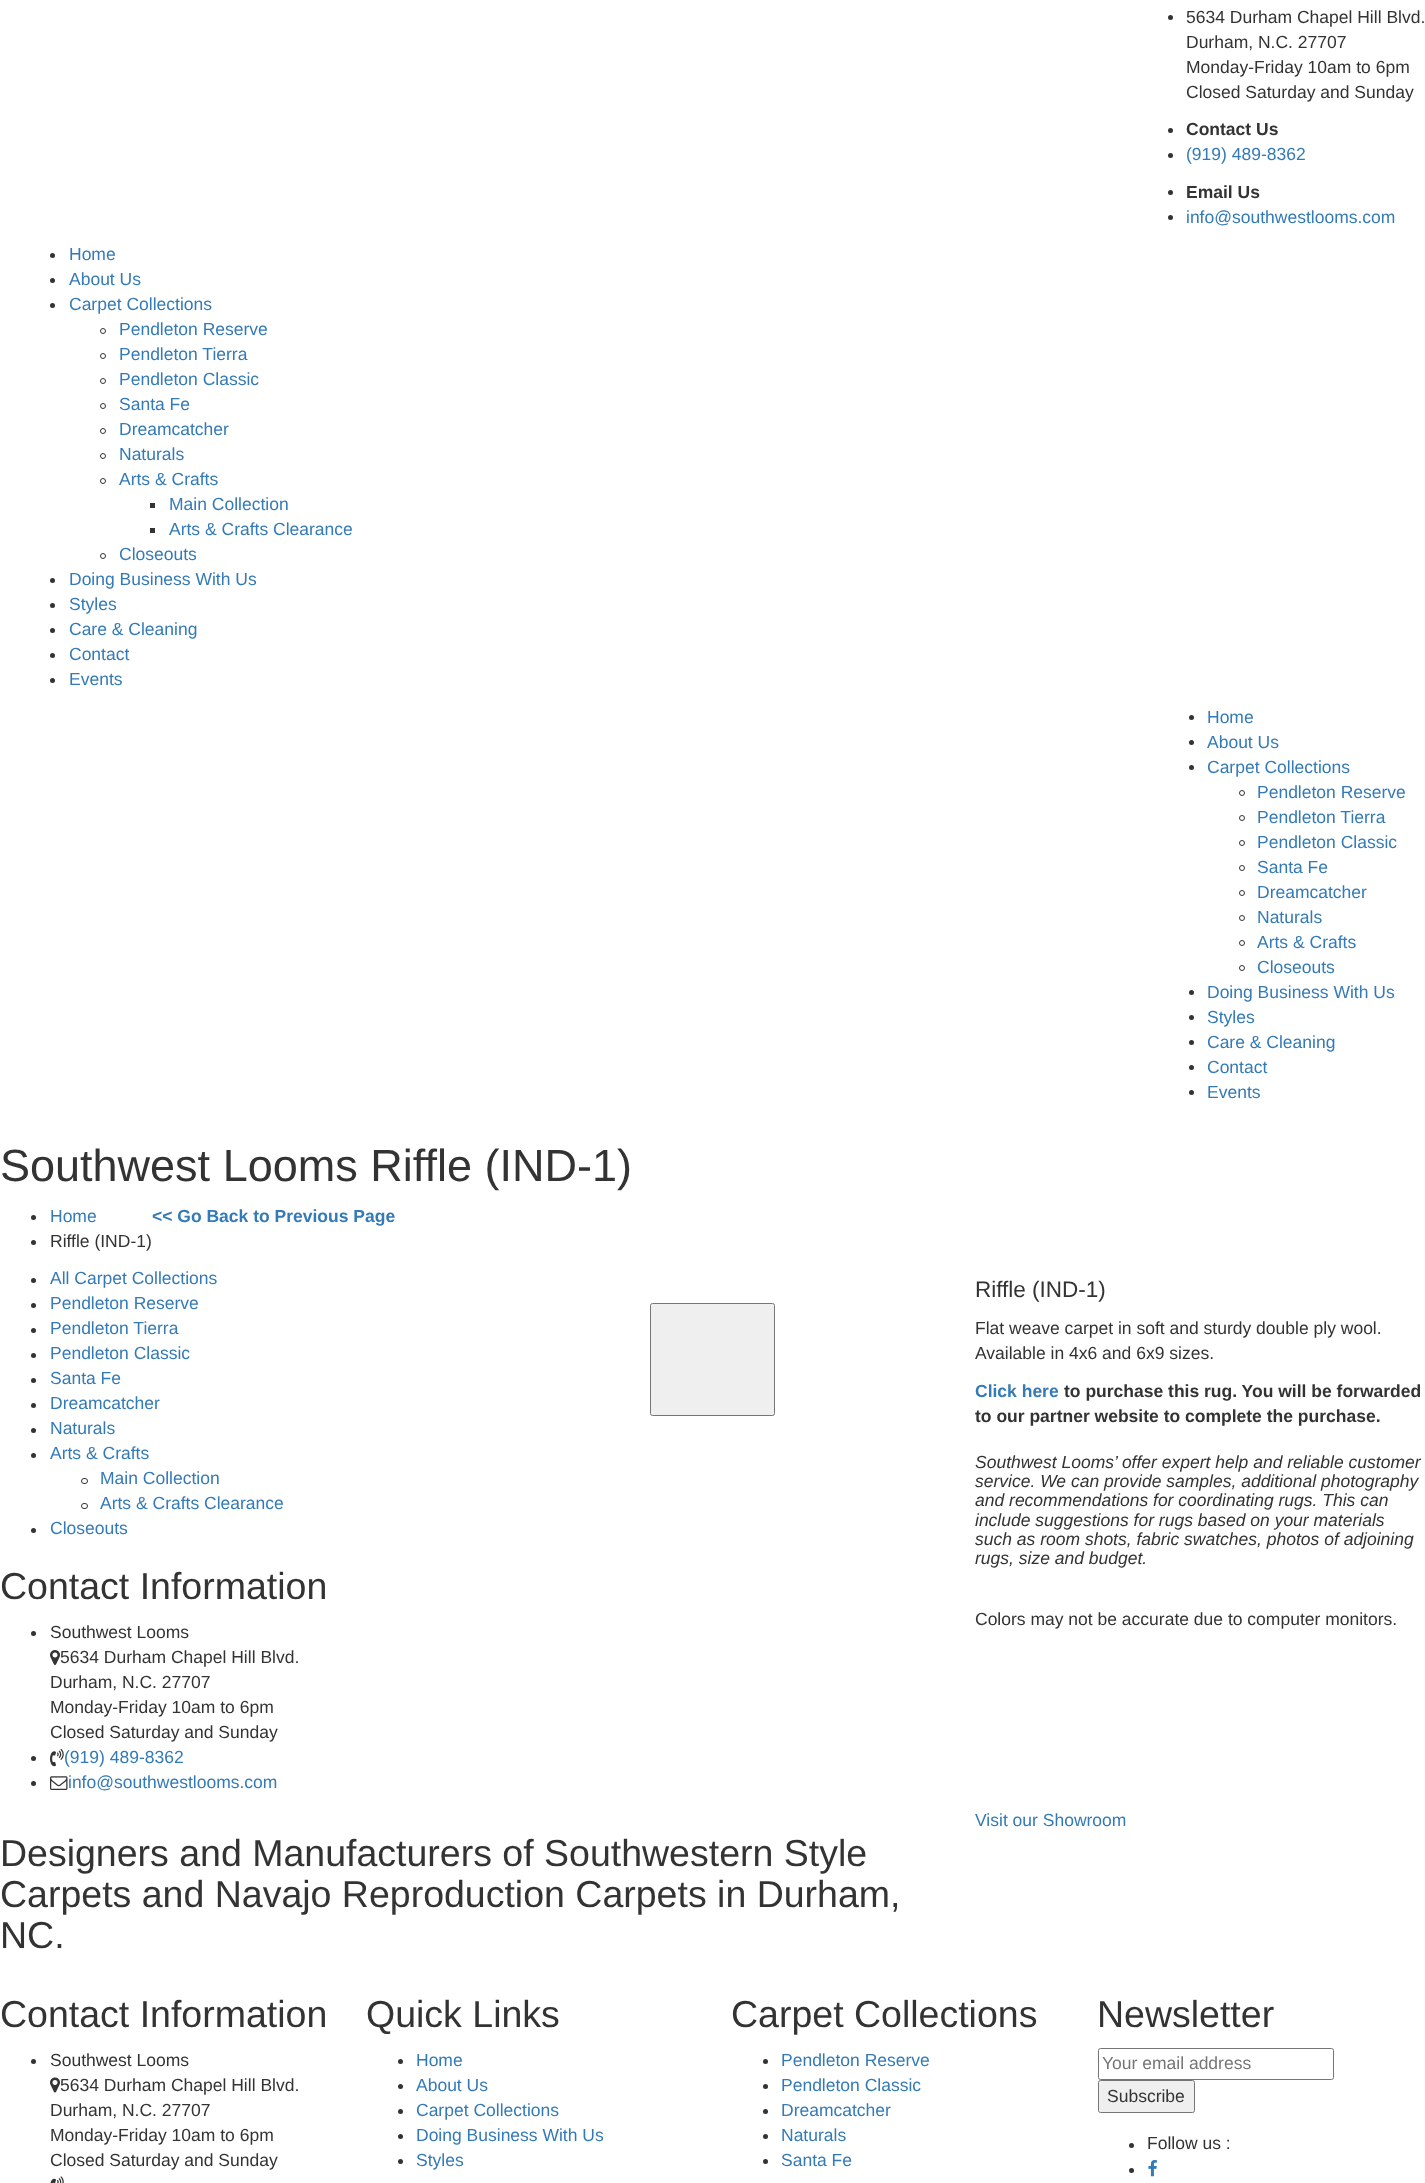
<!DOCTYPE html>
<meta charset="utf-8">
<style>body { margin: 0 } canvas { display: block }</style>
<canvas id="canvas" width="1425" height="2183"></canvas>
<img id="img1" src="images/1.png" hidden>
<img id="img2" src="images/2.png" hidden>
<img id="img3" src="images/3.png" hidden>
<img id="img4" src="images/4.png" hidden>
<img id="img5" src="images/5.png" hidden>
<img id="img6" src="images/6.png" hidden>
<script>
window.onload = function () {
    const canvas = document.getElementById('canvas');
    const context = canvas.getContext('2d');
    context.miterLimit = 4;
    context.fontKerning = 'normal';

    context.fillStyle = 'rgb(255, 255, 255)';
    context.fillRect(0, 0, 1425, 2183);
    context.fillStyle = 'rgb(51, 51, 51)';
    context.beginPath();
    context.arc(1170.5, 17.5, 2.5, 0, 2 * Math.PI);
    context.fill();
    context.beginPath();
    context.arc(1170.5, 130.5, 2.5, 0, 2 * Math.PI);
    context.fill();
    context.beginPath();
    context.arc(1170.5, 155.5, 2.5, 0, 2 * Math.PI);
    context.fill();
    context.beginPath();
    context.arc(1170.5, 192.5, 2.5, 0, 2 * Math.PI);
    context.fill();
    context.beginPath();
    context.arc(1170.5, 217.5, 2.5, 0, 2 * Math.PI);
    context.fill();
    context.beginPath();
    context.arc(52.5, 255.5, 2.5, 0, 2 * Math.PI);
    context.fill();
    context.beginPath();
    context.arc(52.5, 280.5, 2.5, 0, 2 * Math.PI);
    context.fill();
    context.beginPath();
    context.arc(52.5, 305.5, 2.5, 0, 2 * Math.PI);
    context.fill();
    context.beginPath();
    context.arc(103, 331, 2.5, 0, 2 * Math.PI);
    context.strokeStyle = 'rgb(51, 51, 51)';
    context.stroke();
    context.beginPath();
    context.arc(103, 356, 2.5, 0, 2 * Math.PI);
    context.stroke();
    context.beginPath();
    context.arc(103, 381, 2.5, 0, 2 * Math.PI);
    context.stroke();
    context.beginPath();
    context.arc(103, 406, 2.5, 0, 2 * Math.PI);
    context.stroke();
    context.beginPath();
    context.arc(103, 431, 2.5, 0, 2 * Math.PI);
    context.stroke();
    context.beginPath();
    context.arc(103, 456, 2.5, 0, 2 * Math.PI);
    context.stroke();
    context.beginPath();
    context.arc(103, 481, 2.5, 0, 2 * Math.PI);
    context.stroke();
    context.fillRect(150, 503, 5, 5);
    context.fillRect(150, 528, 5, 5);
    context.beginPath();
    context.arc(103, 556, 2.5, 0, 2 * Math.PI);
    context.stroke();
    context.beginPath();
    context.arc(52.5, 580.5, 2.5, 0, 2 * Math.PI);
    context.fill();
    context.beginPath();
    context.arc(52.5, 605.5, 2.5, 0, 2 * Math.PI);
    context.fill();
    context.beginPath();
    context.arc(52.5, 630.5, 2.5, 0, 2 * Math.PI);
    context.fill();
    context.beginPath();
    context.arc(52.5, 655.5, 2.5, 0, 2 * Math.PI);
    context.fill();
    context.beginPath();
    context.arc(52.5, 680.5, 2.5, 0, 2 * Math.PI);
    context.fill();
    context.beginPath();
    context.arc(1191.5, 717.5, 2.5, 0, 2 * Math.PI);
    context.fill();
    context.beginPath();
    context.arc(1191.5, 742.5, 2.5, 0, 2 * Math.PI);
    context.fill();
    context.beginPath();
    context.arc(1191.5, 767.5, 2.5, 0, 2 * Math.PI);
    context.fill();
    context.beginPath();
    context.arc(1242, 793, 2.5, 0, 2 * Math.PI);
    context.stroke();
    context.beginPath();
    context.arc(1242, 818, 2.5, 0, 2 * Math.PI);
    context.stroke();
    context.beginPath();
    context.arc(1242, 843, 2.5, 0, 2 * Math.PI);
    context.stroke();
    context.beginPath();
    context.arc(1242, 868, 2.5, 0, 2 * Math.PI);
    context.stroke();
    context.beginPath();
    context.arc(1242, 893, 2.5, 0, 2 * Math.PI);
    context.stroke();
    context.beginPath();
    context.arc(1242, 918, 2.5, 0, 2 * Math.PI);
    context.stroke();
    context.beginPath();
    context.arc(1242, 943, 2.5, 0, 2 * Math.PI);
    context.stroke();
    context.beginPath();
    context.arc(1242, 968, 2.5, 0, 2 * Math.PI);
    context.stroke();
    context.beginPath();
    context.arc(1191.5, 992.5, 2.5, 0, 2 * Math.PI);
    context.fill();
    context.beginPath();
    context.arc(1191.5, 1017.5, 2.5, 0, 2 * Math.PI);
    context.fill();
    context.beginPath();
    context.arc(1191.5, 1042.5, 2.5, 0, 2 * Math.PI);
    context.fill();
    context.beginPath();
    context.arc(1191.5, 1067.5, 2.5, 0, 2 * Math.PI);
    context.fill();
    context.beginPath();
    context.arc(1191.5, 1092.5, 2.5, 0, 2 * Math.PI);
    context.fill();
    context.beginPath();
    context.arc(33.5, 1217.5, 2.5, 0, 2 * Math.PI);
    context.fill();
    context.beginPath();
    context.arc(33.5, 1242.5, 2.5, 0, 2 * Math.PI);
    context.fill();
    context.beginPath();
    context.arc(33.5, 1280.5, 2.5, 0, 2 * Math.PI);
    context.fill();
    context.beginPath();
    context.arc(33.5, 1305.5, 2.5, 0, 2 * Math.PI);
    context.fill();
    context.beginPath();
    context.arc(33.5, 1330.5, 2.5, 0, 2 * Math.PI);
    context.fill();
    context.beginPath();
    context.arc(33.5, 1355.5, 2.5, 0, 2 * Math.PI);
    context.fill();
    context.beginPath();
    context.arc(33.5, 1380.5, 2.5, 0, 2 * Math.PI);
    context.fill();
    context.beginPath();
    context.arc(33.5, 1405.5, 2.5, 0, 2 * Math.PI);
    context.fill();
    context.beginPath();
    context.arc(33.5, 1430.5, 2.5, 0, 2 * Math.PI);
    context.fill();
    context.beginPath();
    context.arc(33.5, 1455.5, 2.5, 0, 2 * Math.PI);
    context.fill();
    context.beginPath();
    context.roundRect(81.5, 1478.5, 6, 5, 2.5);
    context.stroke();
    context.beginPath();
    context.roundRect(81.5, 1503.5, 6, 5, 2.5);
    context.stroke();
    context.beginPath();
    context.arc(33.5, 1530.5, 2.5, 0, 2 * Math.PI);
    context.fill();
    context.beginPath();
    context.arc(33.5, 1633.5, 2.5, 0, 2 * Math.PI);
    context.fill();
    context.drawImage(document.getElementById('img1'), 50, 1650, 10, 15);
    context.beginPath();
    context.arc(33.5, 1758.5, 2.5, 0, 2 * Math.PI);
    context.fill();
    context.drawImage(document.getElementById('img2'), 50, 1748, 14, 19);
    context.beginPath();
    context.arc(33.5, 1783.5, 2.5, 0, 2 * Math.PI);
    context.fill();
    context.drawImage(document.getElementById('img3'), 50, 1776, 18, 14);
    context.fillStyle = 'rgb(239, 239, 239)';
    context.beginPath();
    context.roundRect(650.5, 1303.5, 124, 112, 2);
    context.fill();
    context.strokeStyle = 'rgb(118, 118, 118)';
    context.stroke();
    context.fillStyle = 'rgb(51, 51, 51)';
    context.beginPath();
    context.arc(33.5, 2061.5, 2.5, 0, 2 * Math.PI);
    context.fill();
    context.drawImage(document.getElementById('img4'), 50, 2077, 10, 16);
    context.drawImage(document.getElementById('img5'), 50, 2176, 14, 7);
    context.beginPath();
    context.arc(400.5, 2061.5, 2.5, 0, 2 * Math.PI);
    context.fill();
    context.beginPath();
    context.arc(400.5, 2086.5, 2.5, 0, 2 * Math.PI);
    context.fill();
    context.beginPath();
    context.arc(400.5, 2111.5, 2.5, 0, 2 * Math.PI);
    context.fill();
    context.beginPath();
    context.arc(400.5, 2136.5, 2.5, 0, 2 * Math.PI);
    context.fill();
    context.beginPath();
    context.arc(400.5, 2161.5, 2.5, 0, 2 * Math.PI);
    context.fill();
    context.beginPath();
    context.arc(765.5, 2061.5, 2.5, 0, 2 * Math.PI);
    context.fill();
    context.beginPath();
    context.arc(765.5, 2086.5, 2.5, 0, 2 * Math.PI);
    context.fill();
    context.beginPath();
    context.arc(765.5, 2111.5, 2.5, 0, 2 * Math.PI);
    context.fill();
    context.beginPath();
    context.arc(765.5, 2136.5, 2.5, 0, 2 * Math.PI);
    context.fill();
    context.beginPath();
    context.arc(765.5, 2161.5, 2.5, 0, 2 * Math.PI);
    context.fill();
    context.beginPath();
    context.roundRect(1098.5, 2048.5, 235, 31, 2);
    context.stroke();
    context.fillStyle = 'rgb(239, 239, 239)';
    context.beginPath();
    context.roundRect(1098.5, 2080.5, 96, 32, 2);
    context.fill();
    context.stroke();
    context.fillStyle = 'rgb(51, 51, 51)';
    context.beginPath();
    context.arc(1131.5, 2145.5, 2.5, 0, 2 * Math.PI);
    context.fill();
    context.beginPath();
    context.arc(1131.5, 2170.5, 2.5, 0, 2 * Math.PI);
    context.fill();
    context.drawImage(document.getElementById('img6'), 1148, 2160, 9, 17);
    context.font = '17.5px Liberation Sans';
    context.fillText('5634 Durham Chapel Hill Blvd.', 1186, 23);
    context.fillText('Durham, N.C. 27707', 1186, 48);
    context.fillText('Monday-Friday 10am to 6pm', 1186, 73);
    context.fillText('Closed Saturday and Sunday', 1186, 98);
    context.font = 'bold 17.5px Liberation Sans';
    context.fillText('Contact Us', 1186, 135);
    context.font = '17.5px Liberation Sans';
    context.fillStyle = 'rgb(51, 122, 183)';
    context.fillText('(919) 489-8362', 1186, 160);
    context.font = 'bold 17.5px Liberation Sans';
    context.fillStyle = 'rgb(51, 51, 51)';
    context.fillText('Email Us', 1186, 198);
    context.font = '17.5px Liberation Sans';
    context.fillStyle = 'rgb(51, 122, 183)';
    context.fillText('info@southwestlooms.com', 1186, 223);
    context.fillText('Home', 69, 260);
    context.fillText('About Us', 69, 285);
    context.fillText('Carpet Collections', 69, 310);
    context.fillText('Pendleton Reserve', 119, 335);
    context.fillText('Pendleton Tierra', 119, 360);
    context.fillText('Pendleton Classic', 119, 385);
    context.fillText('Santa Fe', 119, 410);
    context.fillText('Dreamcatcher', 119, 435);
    context.fillText('Naturals', 119, 460);
    context.fillText('Arts & Crafts', 119, 485);
    context.fillText('Main Collection', 169, 510);
    context.fillText('Arts & Crafts Clearance', 169, 535);
    context.fillText('Closeouts', 119, 560);
    context.fillText('Doing Business With Us', 69, 585);
    context.fillText('Styles', 69, 610);
    context.fillText('Care & Cleaning', 69, 635);
    context.fillText('Contact', 69, 660);
    context.fillText('Events', 69, 685);
    context.fillText('Home', 1207, 723);
    context.fillText('About Us', 1207, 748);
    context.fillText('Carpet Collections', 1207, 773);
    context.fillText('Pendleton Reserve', 1257, 798);
    context.fillText('Pendleton Tierra', 1257, 823);
    context.fillText('Pendleton Classic', 1257, 848);
    context.fillText('Santa Fe', 1257, 873);
    context.fillText('Dreamcatcher', 1257, 898);
    context.fillText('Naturals', 1257, 923);
    context.fillText('Arts & Crafts', 1257, 948);
    context.fillText('Closeouts', 1257, 973);
    context.fillText('Doing Business With Us', 1207, 998);
    context.fillText('Styles', 1207, 1023);
    context.fillText('Care & Cleaning', 1207, 1048);
    context.fillText('Contact', 1207, 1073);
    context.fillText('Events', 1207, 1098);
    context.font = '45px Liberation Sans';
    context.fillStyle = 'rgb(51, 51, 51)';
    context.fillText('Southwest Looms Riffle (IND-1)', 0, 1181);
    context.font = '17.5px Liberation Sans';
    context.fillStyle = 'rgb(51, 122, 183)';
    context.fillText('Home', 50, 1222);
    context.fillStyle = 'rgb(51, 51, 51)';
    context.fillText('Riffle (IND-1)', 50, 1247);
    context.font = 'bold 17.5px Liberation Sans';
    context.fillStyle = 'rgb(51, 122, 183)';
    context.fillText('<< Go Back to Previous Page', 152, 1222);
    context.font = '17.5px Liberation Sans';
    context.fillText('All Carpet Collections', 50, 1284);
    context.fillText('Pendleton Reserve', 50, 1309);
    context.fillText('Pendleton Tierra', 50, 1334);
    context.fillText('Pendleton Classic', 50, 1359);
    context.fillText('Santa Fe', 50, 1384);
    context.fillText('Dreamcatcher', 50, 1409);
    context.fillText('Naturals', 50, 1434);
    context.fillText('Arts & Crafts', 50, 1459);
    context.fillText('Main Collection', 100, 1484);
    context.fillText('Arts & Crafts Clearance', 100, 1509);
    context.fillText('Closeouts', 50, 1534);
    context.font = '37.5px Liberation Sans';
    context.fillStyle = 'rgb(51, 51, 51)';
    context.fillText('Contact Information', 0, 1599);
    context.font = '17.5px Liberation Sans';
    context.fillText('Southwest Looms', 50, 1638);
    context.fillText('5634 Durham Chapel Hill Blvd.', 60, 1663);
    context.fillText('Durham, N.C. 27707', 50, 1688);
    context.fillText('Monday-Friday 10am to 6pm', 50, 1713);
    context.fillText('Closed Saturday and Sunday', 50, 1738);
    context.fillStyle = 'rgb(51, 122, 183)';
    context.fillText('(919) 489-8362', 64, 1763);
    context.fillText('info@southwestlooms.com', 68, 1788);
    context.font = '22.5px Liberation Sans';
    context.fillStyle = 'rgb(51, 51, 51)';
    context.fillText('Riffle (IND-1)', 975, 1297);
    context.font = '17.5px Liberation Sans';
    context.fillText('Flat weave carpet in soft and sturdy double ply wool.', 975, 1334);
    context.fillText('Available in 4x6 and 6x9 sizes.', 975, 1359);
    context.font = 'bold 17.5px Liberation Sans';
    context.fillStyle = 'rgb(51, 122, 183)';
    context.fillText('Click here', 975, 1397);
    context.fillStyle = 'rgb(51, 51, 51)';
    context.fillText('to purchase this rug. You will be forwarded', 1064, 1397);
    context.fillText('to our partner website to complete the purchase.', 975, 1422);
    context.font = 'italic 17.5px Liberation Sans';
    context.fillText('Southwest Looms’ offer expert help and reliable customer', 975, 1468);
    context.fillText('service. We can provide samples, additional photography', 975, 1487);
    context.fillText('and recommendations for coordinating rugs. This can', 975, 1506);
    context.fillText('include suggestions for rugs based on your materials', 975, 1526);
    context.fillText('such as room shots, fabric swatches, photos of adjoining', 975, 1545);
    context.fillText('rugs, size and budget.', 975, 1564);
    context.font = '17.5px Liberation Sans';
    context.fillText('Colors may not be accurate due to computer monitors.', 975, 1625);
    context.fillStyle = 'rgb(51, 122, 183)';
    context.fillText('Visit our Showroom', 975, 1826);
    context.font = '37.5px Liberation Sans';
    context.fillStyle = 'rgb(51, 51, 51)';
    context.fillText('Designers and Manufacturers of Southwestern Style', 0, 1866);
    context.fillText('Carpets and Navajo Reproduction Carpets in Durham,', 0, 1907);
    context.fillText('NC.', 0, 1948);
    context.fillText('Contact Information', 0, 2027);
    context.font = '17.5px Liberation Sans';
    context.fillText('Southwest Looms', 50, 2066);
    context.fillText('5634 Durham Chapel Hill Blvd.', 60, 2091);
    context.fillText('Durham, N.C. 27707', 50, 2116);
    context.fillText('Monday-Friday 10am to 6pm', 50, 2141);
    context.fillText('Closed Saturday and Sunday', 50, 2166);
    context.font = '37.5px Liberation Sans';
    context.fillText('Quick Links', 366, 2027);
    context.font = '17.5px Liberation Sans';
    context.fillStyle = 'rgb(51, 122, 183)';
    context.fillText('Home', 416, 2066);
    context.fillText('About Us', 416, 2091);
    context.fillText('Carpet Collections', 416, 2116);
    context.fillText('Doing Business With Us', 416, 2141);
    context.fillText('Styles', 416, 2166);
    context.font = '37.5px Liberation Sans';
    context.fillStyle = 'rgb(51, 51, 51)';
    context.fillText('Carpet Collections', 731, 2027);
    context.font = '17.5px Liberation Sans';
    context.fillStyle = 'rgb(51, 122, 183)';
    context.fillText('Pendleton Reserve', 781, 2066);
    context.fillText('Pendleton Classic', 781, 2091);
    context.fillText('Dreamcatcher', 781, 2116);
    context.fillText('Naturals', 781, 2141);
    context.fillText('Santa Fe', 781, 2166);
    context.font = '37.5px Liberation Sans';
    context.fillStyle = 'rgb(51, 51, 51)';
    context.fillText('Newsletter', 1097, 2027);
    context.font = '17.5px Liberation Sans';
    context.fillStyle = 'rgb(117, 117, 117)';
    context.fillText('Your email address', 1102, 2069);
    context.fillStyle = 'rgb(51, 51, 51)';
    context.fillText('Subscribe', 1107, 2102);
    context.fillText('Follow us :', 1147, 2149);
};
</script>
